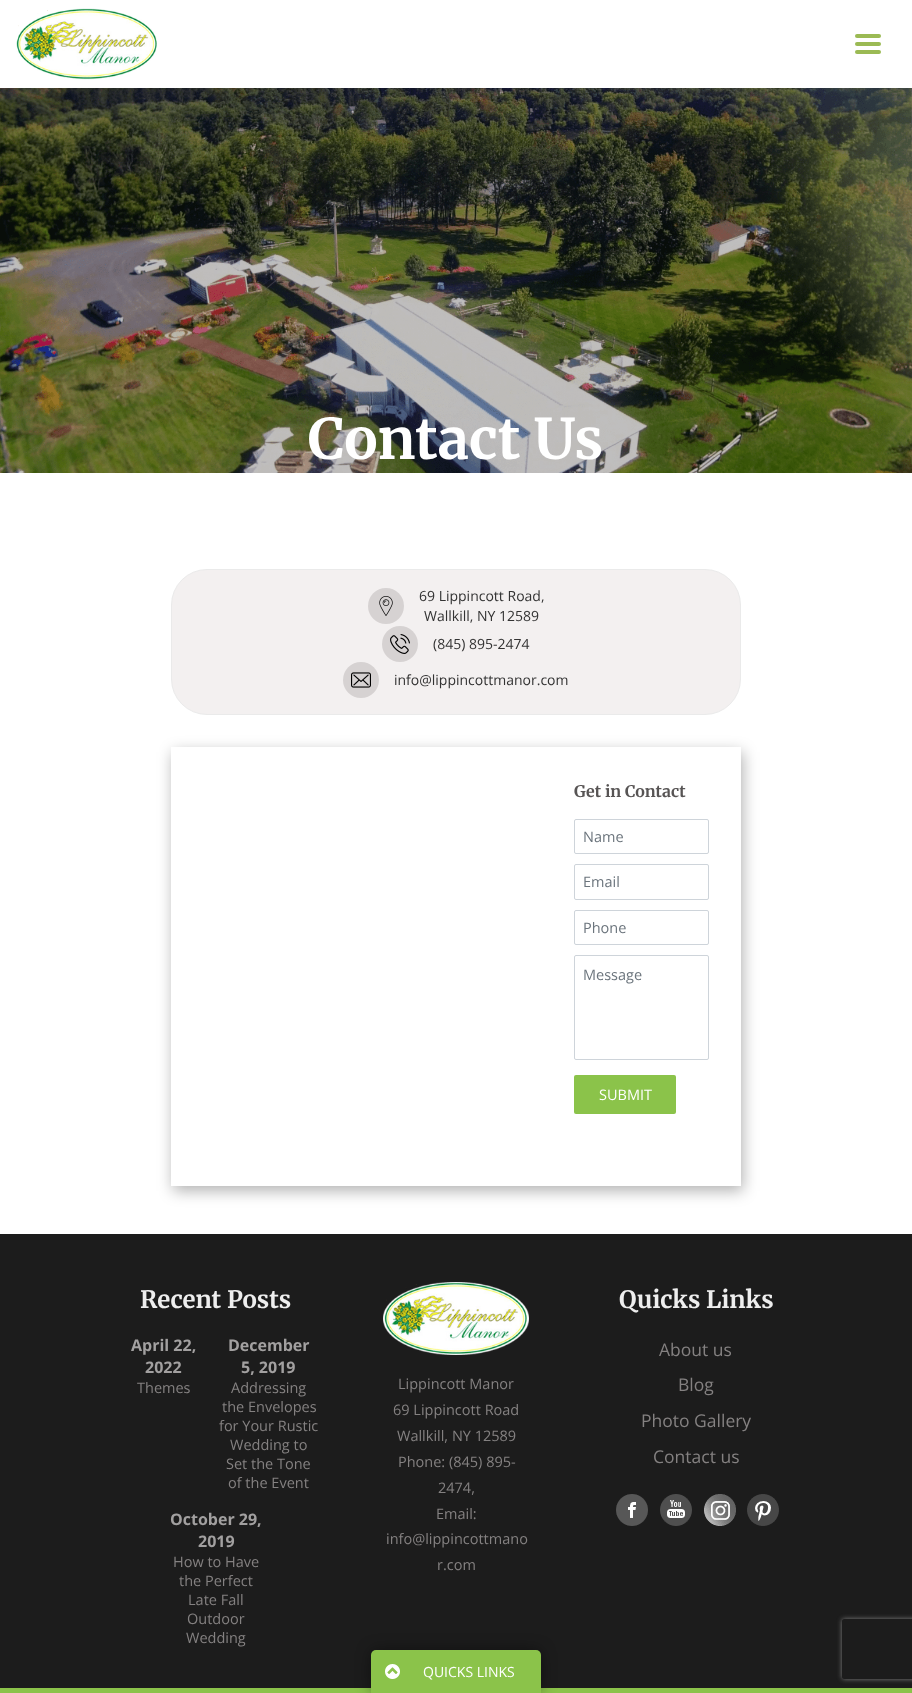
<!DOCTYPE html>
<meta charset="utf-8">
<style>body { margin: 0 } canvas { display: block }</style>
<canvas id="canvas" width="912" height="1693"></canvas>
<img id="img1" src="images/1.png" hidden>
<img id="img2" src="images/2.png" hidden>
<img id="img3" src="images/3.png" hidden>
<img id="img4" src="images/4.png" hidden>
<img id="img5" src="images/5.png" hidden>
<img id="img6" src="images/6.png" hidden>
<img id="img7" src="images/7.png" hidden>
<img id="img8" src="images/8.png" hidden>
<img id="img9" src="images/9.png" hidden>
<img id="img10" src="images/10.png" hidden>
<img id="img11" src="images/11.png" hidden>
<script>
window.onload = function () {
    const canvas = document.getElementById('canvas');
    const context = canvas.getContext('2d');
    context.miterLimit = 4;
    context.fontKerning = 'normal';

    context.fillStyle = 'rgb(255, 255, 255)';
    context.fillRect(0, 0, 912, 1693);
    context.drawImage(document.getElementById('img1'), 16, 8, 141, 72);
    context.fillStyle = 'rgb(155, 186, 84)';
    context.beginPath();
    context.roundRect(855, 34, 26, 4, 2);
    context.fill();
    context.beginPath();
    context.roundRect(855, 42, 26, 4, 2);
    context.fill();
    context.beginPath();
    context.roundRect(855, 50, 26, 4, 2);
    context.fill();
    context.drawImage(document.getElementById('img2'), 0, 88, 912, 385);
    context.fillStyle = 'rgb(243, 240, 240)';
    context.beginPath();
    context.roundRect(171.5, 569.5, 569, 145, 35.5);
    context.fill();
    context.strokeStyle = 'rgb(234, 234, 234)';
    context.stroke();
    context.fillStyle = 'rgb(214, 210, 210)';
    context.beginPath();
    context.arc(386, 606, 18, 0, 2 * Math.PI);
    context.fill();
    context.drawImage(document.getElementById('img3'), 379, 596, 14, 20);
    context.beginPath();
    context.arc(400, 644, 18, 0, 2 * Math.PI);
    context.fill();
    context.drawImage(document.getElementById('img4'), 390, 634, 20, 20);
    context.beginPath();
    context.arc(361, 680, 18, 0, 2 * Math.PI);
    context.fill();
    context.drawImage(document.getElementById('img5'), 351, 672, 20, 16);
    context.save();
    context.beginPath();
    context.moveTo(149, 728);
    context.lineTo(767, 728);
    context.lineTo(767, 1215);
    context.lineTo(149, 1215);
    context.closePath();
    context.moveTo(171, 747);
    context.lineTo(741, 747);
    context.lineTo(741, 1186);
    context.lineTo(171, 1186);
    context.closePath();
    context.clip('evenodd');
    context.fillStyle = 'rgba(0, 0, 0, 0.3)';
    context.filter = 'blur(7.5px)';
    context.beginPath();
    context.rect(173, 752, 570, 439);
    context.fill();
    context.filter = 'none';
    context.restore();
    context.beginPath();
    context.roundRect(574.5, 819.5, 134, 34, 1.5);
    context.strokeStyle = 'rgb(206, 212, 218)';
    context.stroke();
    context.beginPath();
    context.roundRect(574.5, 864.5, 134, 35, 1.5);
    context.stroke();
    context.beginPath();
    context.roundRect(574.5, 910.5, 134, 34, 1.5);
    context.stroke();
    context.beginPath();
    context.roundRect(574.5, 955.5, 134, 104, 1.5);
    context.stroke();
    context.fillStyle = 'rgb(139, 195, 74)';
    context.beginPath();
    context.roundRect(574, 1075, 102, 39, 2);
    context.fill();
    context.fillStyle = 'rgb(28, 28, 28)';
    context.fillRect(0, 1234, 912, 454);
    context.drawImage(document.getElementById('img6'), 383, 1282, 146, 73);
    context.drawImage(document.getElementById('img7'), 616, 1494, 32, 32);
    context.drawImage(document.getElementById('img8'), 660, 1494, 32, 32);
    context.drawImage(document.getElementById('img9'), 704, 1494, 32, 32);
    context.drawImage(document.getElementById('img10'), 747, 1494, 32, 32);
    context.save();
    context.beginPath();
    context.moveTo(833, 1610);
    context.lineTo(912, 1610);
    context.lineTo(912, 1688);
    context.lineTo(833, 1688);
    context.closePath();
    context.moveTo(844, 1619);
    context.lineTo(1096, 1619);
    context.bezierCurveTo(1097, 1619, 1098, 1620, 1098, 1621);
    context.lineTo(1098, 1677);
    context.bezierCurveTo(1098, 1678, 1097, 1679, 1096, 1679);
    context.lineTo(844, 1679);
    context.bezierCurveTo(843, 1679, 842, 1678, 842, 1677);
    context.lineTo(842, 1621);
    context.bezierCurveTo(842, 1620, 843, 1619, 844, 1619);
    context.closePath();
    context.clip('evenodd');
    context.fillStyle = 'rgb(128, 128, 128)';
    context.filter = 'blur(2.5px)';
    context.beginPath();
    context.roundRect(842, 1619, 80, 60, 2);
    context.fill();
    context.filter = 'none';
    context.restore();
    context.fillStyle = 'rgb(139, 195, 74)';
    context.fillRect(0, 1688, 912, 5);
    context.fillStyle = 'rgba(0, 0, 0, 0.4)';
    context.filter = 'blur(7.5px)';
    context.beginPath();
    context.roundRect(371, 1650, 170, 43, 5);
    context.fill();
    context.filter = 'none';
    context.fillStyle = 'rgb(139, 195, 74)';
    context.beginPath();
    context.roundRect(371, 1650, 170, 43, [5, 5, 0, 0]);
    context.fill();
    context.drawImage(document.getElementById('img11'), 385, 1664, 15, 15);
    context.font = '300 56px Merriweather';
    context.fillStyle = 'rgb(255, 255, 255)';
    context.fillText('Contact Us', 308, 459);
    context.font = '14px Open Sans';
    context.fillStyle = 'rgb(51, 51, 51)';
    context.fillText('69 Lippincott Road,', 419, 601);
    context.fillText('Wallkill, NY 12589', 424, 621);
    context.fillText('(845) 895-2474', 433, 649);
    context.fillText('info@lippincottmanor.com', 394, 685);
    context.font = '300 16px Merriweather';
    context.fillStyle = 'rgb(87, 84, 84)';
    context.fillText('Get in Contact', 574, 797);
    context.font = '14.5px Open Sans';
    context.fillStyle = 'rgb(108, 117, 125)';
    context.fillText('Name', 583, 842);
    context.fillText('Email', 583, 887);
    context.fillText('Phone', 583, 933);
    context.fillText('Message', 583, 980);
    context.fillStyle = 'rgb(255, 255, 255)';
    context.fillText('SUBMIT', 599, 1100);
    context.font = '300 24px Merriweather';
    context.fillStyle = 'rgb(238, 238, 238)';
    context.fillText('Recent Posts', 140, 1308);
    context.font = 'bold 16px Open Sans';
    context.fillStyle = 'rgb(162, 160, 160)';
    context.fillText('April 22,', 131, 1351);
    context.fillText('2022', 145, 1373);
    context.font = '14.5px Open Sans';
    context.fillStyle = 'rgb(132, 129, 129)';
    context.fillText('Themes', 137, 1393);
    context.font = 'bold 16px Open Sans';
    context.fillStyle = 'rgb(162, 160, 160)';
    context.fillText('December', 228, 1351);
    context.fillText('5, 2019', 241, 1373);
    context.font = '14.5px Open Sans';
    context.fillStyle = 'rgb(132, 129, 129)';
    context.fillText('Addressing', 231, 1393);
    context.fillText('the Envelopes', 222, 1412);
    context.fillText('for Your Rustic', 219, 1431);
    context.fillText('Wedding to', 230, 1450);
    context.fillText('Set the Tone', 226, 1469);
    context.fillText('of the Event', 228, 1488);
    context.font = 'bold 16px Open Sans';
    context.fillStyle = 'rgb(162, 160, 160)';
    context.fillText('October 29,', 170, 1525);
    context.fillText('2019', 198, 1547);
    context.font = '14.5px Open Sans';
    context.fillStyle = 'rgb(132, 129, 129)';
    context.fillText('How to Have', 173, 1567);
    context.fillText('the Perfect', 179, 1586);
    context.fillText('Late Fall', 188, 1605);
    context.fillText('Outdoor', 187, 1624);
    context.fillText('Wedding', 186, 1643);
    context.fillText('Lippincott Manor', 398, 1389);
    context.fillText('69 Lippincott Road', 393, 1415);
    context.fillText('Wallkill, NY 12589', 397, 1441);
    context.fillText('Phone: (845) 895-', 398, 1467);
    context.fillText('2474,', 438, 1493);
    context.fillText('Email:', 436, 1519);
    context.fillText('info@lippincottmano', 386, 1544);
    context.fillText('r.com', 437, 1570);
    context.font = '300 24px Merriweather';
    context.fillStyle = 'rgb(238, 238, 238)';
    context.fillText('Quicks Links', 619, 1308);
    context.font = '17.5px Open Sans';
    context.fillStyle = 'rgb(132, 129, 129)';
    context.fillText('About us', 659, 1356);
    context.fillText('Blog', 678, 1391);
    context.fillText('Photo Gallery', 641, 1427);
    context.fillText('Contact us', 653, 1463);
    context.font = '14px Open Sans';
    context.fillStyle = 'rgb(255, 255, 255)';
    context.fillText('QUICKS LINKS', 423, 1677);
};
</script>
